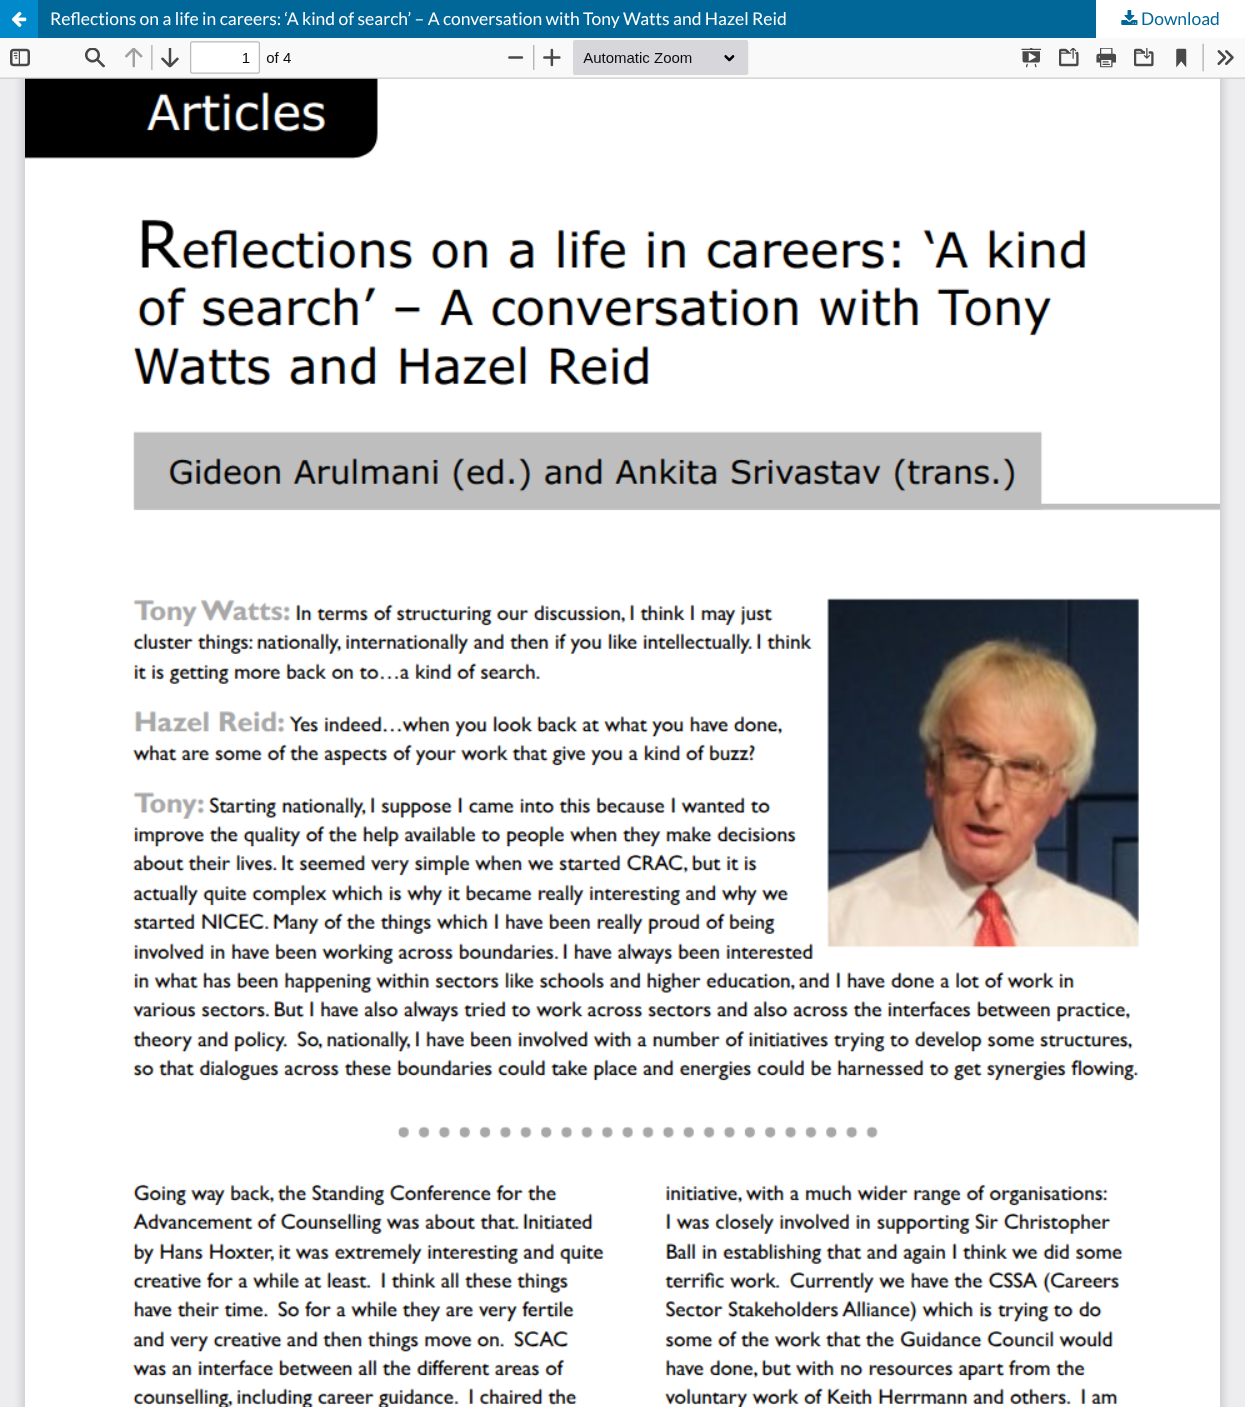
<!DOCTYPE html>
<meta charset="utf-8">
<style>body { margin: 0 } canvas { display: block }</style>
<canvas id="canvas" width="1245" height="1407"></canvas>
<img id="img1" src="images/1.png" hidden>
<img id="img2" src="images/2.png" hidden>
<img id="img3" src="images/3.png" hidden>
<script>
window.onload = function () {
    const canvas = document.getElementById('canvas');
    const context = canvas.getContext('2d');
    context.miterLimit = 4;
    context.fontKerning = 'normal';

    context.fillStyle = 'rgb(255, 255, 255)';
    context.fillRect(0, 0, 1245, 1407);
    context.fillStyle = 'rgb(0, 103, 152)';
    context.fillRect(38, 0, 1058, 38);
    context.fillStyle = 'rgb(0, 138, 203)';
    context.fillRect(0, 0, 38, 38);
    context.drawImage(document.getElementById('img1'), 11, 11, 16, 16);
    context.drawImage(document.getElementById('img2'), 1121, 10, 17, 15);
    context.drawImage(document.getElementById('img3'), 0, 38, 1245, 1369);
    context.font = '17.5px Lato';
    context.fillStyle = 'rgb(255, 255, 255)';
    context.fillText('Reflections on a life in careers: ‘A kind of search’ – A conversation with Tony Watts and Hazel Reid', 50, 25);
    context.fillStyle = 'rgb(0, 103, 152)';
    context.fillText('Download', 1141, 25);
};
</script>
